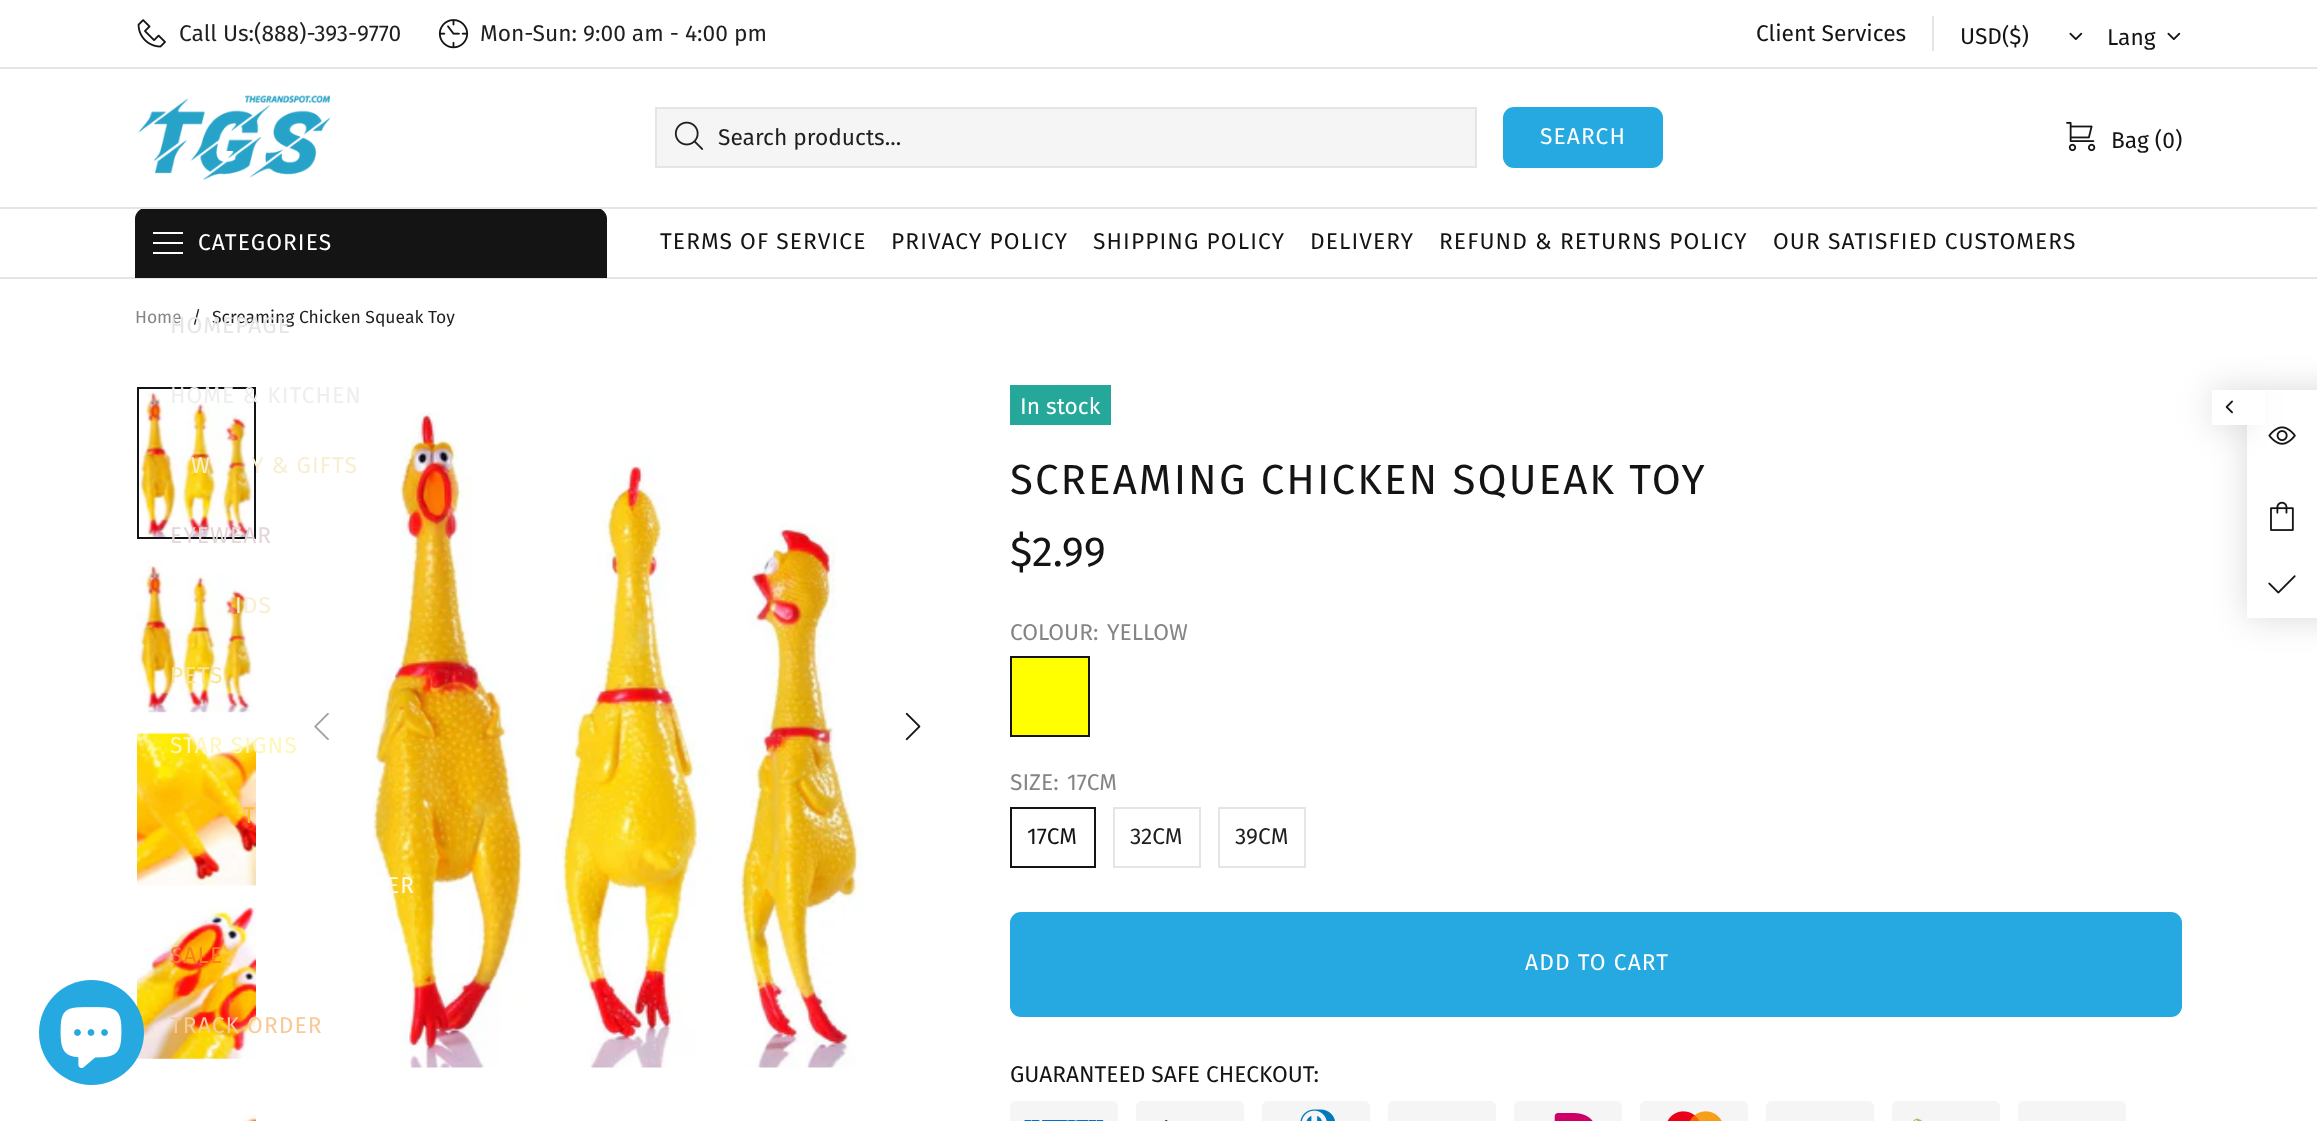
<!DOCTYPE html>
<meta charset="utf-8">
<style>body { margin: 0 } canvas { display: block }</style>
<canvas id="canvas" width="2317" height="1121"></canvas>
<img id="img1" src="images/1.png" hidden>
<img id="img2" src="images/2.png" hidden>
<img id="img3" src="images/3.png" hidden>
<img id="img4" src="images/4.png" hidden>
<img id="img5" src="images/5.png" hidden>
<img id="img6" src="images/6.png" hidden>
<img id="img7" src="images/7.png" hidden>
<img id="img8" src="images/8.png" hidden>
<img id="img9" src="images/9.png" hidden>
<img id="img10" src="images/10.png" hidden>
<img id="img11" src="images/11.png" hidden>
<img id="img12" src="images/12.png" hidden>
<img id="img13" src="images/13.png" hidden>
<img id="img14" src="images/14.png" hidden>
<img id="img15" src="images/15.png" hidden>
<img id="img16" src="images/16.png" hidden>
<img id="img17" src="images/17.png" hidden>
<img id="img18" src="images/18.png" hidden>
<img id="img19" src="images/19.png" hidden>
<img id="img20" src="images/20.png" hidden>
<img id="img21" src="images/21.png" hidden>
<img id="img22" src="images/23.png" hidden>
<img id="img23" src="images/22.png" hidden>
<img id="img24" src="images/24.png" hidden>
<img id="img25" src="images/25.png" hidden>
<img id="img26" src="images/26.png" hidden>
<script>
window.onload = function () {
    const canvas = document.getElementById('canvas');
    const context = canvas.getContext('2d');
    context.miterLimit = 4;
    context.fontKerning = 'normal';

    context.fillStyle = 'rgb(255, 255, 255)';
    context.fillRect(0, 0, 2317, 1121);
    context.fillStyle = 'rgb(229, 229, 229)';
    context.fillRect(0, 67, 2317, 2);
    context.drawImage(document.getElementById('img1'), 137, 19, 29, 29);
    context.drawImage(document.getElementById('img2'), 438, 19, 31, 30);
    context.fillRect(1932, 16, 2, 35);
    context.drawImage(document.getElementById('img3'), 2069, 32, 14, 8);
    context.drawImage(document.getElementById('img3'), 2167, 32, 14, 8);
    context.fillRect(0, 277, 2317, 2);
    context.fillStyle = 'rgb(20, 20, 20)';
    context.beginPath();
    context.roundRect(135, 208, 472, 70, [11, 11, 0, 0]);
    context.fill();
    context.fillStyle = 'rgb(229, 229, 229)';
    context.fillRect(0, 207, 2317, 2);
    context.drawImage(document.getElementById('img4'), 138, 95, 193, 85);
    context.fillStyle = 'rgb(245, 245, 245)';
    context.beginPath();
    context.rect(656, 108, 820, 59);
    context.fill();
    context.strokeStyle = 'rgb(229, 229, 229)';
    context.lineWidth = 2;
    context.stroke();
    context.drawImage(document.getElementById('img5'), 674, 121, 30, 29);
    context.fillStyle = 'rgb(37, 169, 224)';
    context.beginPath();
    context.roundRect(1504, 108, 158, 59, 10);
    context.fill();
    context.strokeStyle = 'rgb(37, 169, 224)';
    context.stroke();
    context.drawImage(document.getElementById('img6'), 2066, 121, 30, 31);
    context.fillStyle = 'rgb(255, 255, 255)';
    context.fillRect(153, 232, 30, 2);
    context.fillRect(153, 242, 30, 2);
    context.fillRect(153, 252, 30, 2);
    context.drawImage(document.getElementById('img7'), 139, 389, 115, 148);
    context.strokeStyle = 'rgb(20, 20, 20)';
    context.strokeRect(138, 388, 117, 150);
    context.drawImage(document.getElementById('img8'), 137, 560, 117, 153);
    context.drawImage(document.getElementById('img9'), 137, 732, 119, 154);
    context.drawImage(document.getElementById('img10'), 137, 907, 119, 152);
    context.drawImage(document.getElementById('img11'), 242, 1114, 14, 7);
    context.drawImage(document.getElementById('img12'), 372, 412, 492, 656);
    context.drawImage(document.getElementById('img13'), 314, 713, 15, 27);
    context.drawImage(document.getElementById('img14'), 905, 712, 16, 29);
    context.fillStyle = 'rgb(37, 167, 153)';
    context.fillRect(1010, 385, 101, 40);
    context.fillStyle = 'rgb(255, 255, 0)';
    context.beginPath();
    context.rect(1011, 657, 78, 79);
    context.fill();
    context.stroke();
    context.strokeRect(1011, 808, 84, 59);
    context.strokeStyle = 'rgb(229, 229, 229)';
    context.strokeRect(1114, 808, 86, 59);
    context.strokeRect(1219, 808, 86, 59);
    context.fillStyle = 'rgb(37, 169, 224)';
    context.beginPath();
    context.roundRect(1011, 913, 1170, 103, 10);
    context.fill();
    context.strokeStyle = 'rgb(37, 169, 224)';
    context.stroke();
    context.drawImage(document.getElementById('img15'), 1010, 1101, 108, 20);
    context.drawImage(document.getElementById('img16'), 1136, 1101, 108, 20);
    context.drawImage(document.getElementById('img17'), 1262, 1101, 108, 20);
    context.drawImage(document.getElementById('img18'), 1388, 1101, 108, 20);
    context.drawImage(document.getElementById('img19'), 1514, 1101, 108, 20);
    context.drawImage(document.getElementById('img20'), 1640, 1101, 108, 20);
    context.drawImage(document.getElementById('img18'), 1766, 1101, 108, 20);
    context.drawImage(document.getElementById('img21'), 1892, 1101, 108, 20);
    context.drawImage(document.getElementById('img18'), 2018, 1101, 108, 20);
    context.fillStyle = 'rgba(0, 0, 0, 0.15)';
    context.filter = 'blur(17.5px)';
    context.beginPath();
    context.rect(2247, 390, 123, 228);
    context.fill();
    context.filter = 'none';
    context.fillStyle = 'rgb(255, 255, 255)';
    context.fillRect(2247, 390, 70, 228);
    context.drawImage(document.getElementById('img22'), 2268, 426, 28, 19);
    context.fillStyle = 'rgba(0, 0, 0, 0.15)';
    context.filter = 'blur(17.5px)';
    context.beginPath();
    context.rect(2212, 390, 35, 35);
    context.fill();
    context.filter = 'none';
    context.fillStyle = 'rgb(255, 255, 255)';
    context.fillRect(2212, 390, 53, 35);
    context.drawImage(document.getElementById('img23'), 2225, 400, 8, 14);
    context.drawImage(document.getElementById('img24'), 2270, 501, 24, 30);
    context.drawImage(document.getElementById('img25'), 2268, 575, 28, 19);
    context.fillStyle = 'rgb(37, 169, 224)';
    context.beginPath();
    context.arc(91.5, 1032.5, 52.5, 0, 2 * Math.PI);
    context.fill();
    context.drawImage(document.getElementById('img26'), 60, 1007, 62, 61);
    context.font = '22.75px Fira Sans';
    context.fillStyle = 'rgb(31, 31, 31)';
    context.fillText('Call Us:(888)-393-9770', 179, 41);
    context.fillText('Mon-Sun: 9:00 am - 4:00 pm', 480, 41);
    context.fillStyle = 'rgb(20, 20, 20)';
    context.fillText('Client Services', 1756, 41);
    context.fillText('USD($)', 1960, 44);
    context.fillText('Lang', 2107, 45);
    context.fillStyle = 'rgb(31, 31, 31)';
    context.fillText('Search products...', 718, 145);
    context.letterSpacing = '1.1px';
    context.fillStyle = 'rgb(255, 255, 255)';
    context.fillText('SEARCH', 1540, 144);
    context.letterSpacing = '0px';
    context.fillStyle = 'rgb(20, 20, 20)';
    context.fillText('Bag (0)', 2111, 148);
    context.letterSpacing = '1.1px';
    context.fillStyle = 'rgb(255, 255, 255)';
    context.fillText('CATEGORIES', 198, 250);
    context.fillStyle = 'rgb(238, 238, 238)';
    context.fillText('HOME & KITCHEN', 170, 403);
    context.fillStyle = 'rgb(248, 238, 209)';
    context.fillText('W', 191, 473);
    context.fillText('Y & GIFTS', 251, 473);
    context.fillStyle = 'rgb(227, 214, 216)';
    context.fillText('EYEWEAR', 170, 543);
    context.fillStyle = 'rgb(248, 238, 209)';
    context.fillText('IDS', 235, 613);
    context.fillStyle = 'rgb(248, 229, 151)';
    context.fillText('PETS', 170, 683);
    context.fillStyle = 'rgb(254, 246, 186)';
    context.fillText('STAR SIGNS', 170, 753);
    context.fillStyle = 'rgb(253, 191, 37)';
    context.fillText('T', 243, 823);
    context.fillStyle = 'rgb(254, 249, 232)';
    context.fillText('ER', 387, 893);
    context.fillStyle = 'rgb(250, 126, 30)';
    context.fillText('SALE', 170, 963);
    context.fillStyle = 'rgb(249, 201, 152)';
    context.fillText('TRACK ORDER', 170, 1033);
    context.fillStyle = 'rgb(20, 20, 20)';
    context.fillText('TERMS OF SERVICE', 660, 249);
    context.fillText('PRIVACY POLICY', 891, 249);
    context.fillText('SHIPPING POLICY', 1093, 249);
    context.fillText('DELIVERY', 1310, 249);
    context.fillText('REFUND & RETURNS POLICY', 1439, 249);
    context.fillText('OUR SATISFIED CUSTOMERS', 1773, 249);
    context.letterSpacing = '0px';
    context.font = '17.5px Fira Sans';
    context.fillStyle = 'rgb(133, 133, 133)';
    context.fillText('Home', 135, 323);
    context.fillStyle = 'rgb(31, 31, 31)';
    context.fillText('/', 192, 323);
    context.fillText('Screaming Chicken Squeak Toy', 212, 323);
    context.letterSpacing = '1.1px';
    context.font = '22.75px Fira Sans';
    context.fillStyle = 'rgb(230, 230, 230)';
    context.fillText('HOMEPAGE', 170, 333);
    context.letterSpacing = '0px';
    context.fillStyle = 'rgb(255, 255, 255)';
    context.fillText('In stock', 1020, 414);
    context.letterSpacing = '2.1px';
    context.font = '42px Fira Sans';
    context.fillStyle = 'rgb(20, 20, 20)';
    context.fillText('SCREAMING CHICKEN SQUEAK TOY', 1010, 494);
    context.letterSpacing = '0px';
    context.fillText('$2.99', 1010, 566);
    context.font = '22.75px Fira Sans';
    context.fillStyle = 'rgb(133, 133, 133)';
    context.fillText('COLOUR:', 1010, 640);
    context.fillText('YELLOW', 1107, 640);
    context.fillText('SIZE:', 1010, 790);
    context.fillText('17CM', 1067, 790);
    context.fillStyle = 'rgb(20, 20, 20)';
    context.fillText('17CM', 1027, 844);
    context.fillStyle = 'rgb(31, 31, 31)';
    context.fillText('32CM', 1130, 844);
    context.fillText('39CM', 1235, 844);
    context.letterSpacing = '1.1px';
    context.fillStyle = 'rgb(255, 255, 255)';
    context.fillText('ADD TO CART', 1525, 970);
    context.letterSpacing = '0px';
    context.fillStyle = 'rgb(20, 20, 20)';
    context.fillText('GUARANTEED SAFE CHECKOUT:', 1010, 1082);
};
</script>
